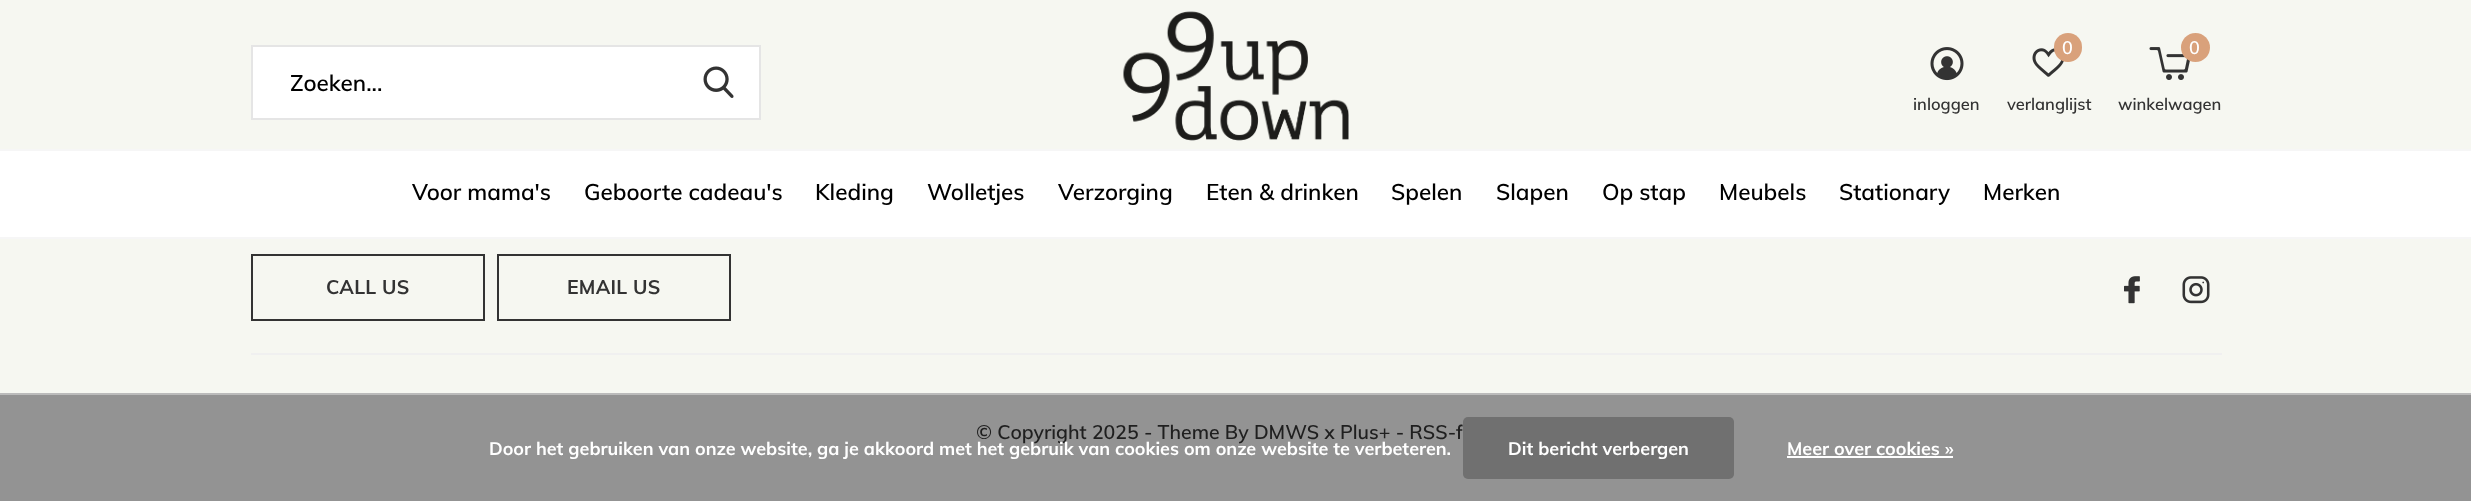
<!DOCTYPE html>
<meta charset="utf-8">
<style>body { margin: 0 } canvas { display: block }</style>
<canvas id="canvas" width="2471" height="501"></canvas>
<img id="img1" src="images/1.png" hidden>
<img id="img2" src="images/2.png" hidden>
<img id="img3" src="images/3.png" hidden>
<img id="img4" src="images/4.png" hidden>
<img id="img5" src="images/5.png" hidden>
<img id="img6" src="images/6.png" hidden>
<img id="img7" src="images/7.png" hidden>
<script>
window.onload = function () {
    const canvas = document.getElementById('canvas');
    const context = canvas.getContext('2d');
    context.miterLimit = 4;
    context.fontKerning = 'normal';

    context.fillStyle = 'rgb(147, 147, 147)';
    context.fillRect(0, 0, 2471, 501);
    context.fillStyle = 'rgb(246, 247, 241)';
    context.fillRect(0, 0, 2471, 149);
    context.drawImage(document.getElementById('img1'), 1123, 11, 226, 130);
    context.fillStyle = 'rgb(255, 255, 255)';
    context.beginPath();
    context.rect(252, 46, 508, 73);
    context.fill();
    context.strokeStyle = 'rgb(229, 229, 229)';
    context.lineWidth = 2;
    context.stroke();
    context.drawImage(document.getElementById('img2'), 703, 66, 31, 32);
    context.drawImage(document.getElementById('img3'), 1930, 47, 34, 34);
    context.drawImage(document.getElementById('img4'), 2032, 48, 32, 29);
    context.fillStyle = 'rgb(217, 161, 123)';
    context.beginPath();
    context.roundRect(2054, 33, 28, 29, 14);
    context.fill();
    context.drawImage(document.getElementById('img5'), 2149, 47, 41, 33);
    context.beginPath();
    context.arc(2195.5, 47.5, 14.5, 0, 2 * Math.PI);
    context.fill();
    context.fillStyle = 'rgb(255, 255, 255)';
    context.fillRect(0, 151, 2471, 86);
    context.fillStyle = 'rgb(246, 246, 246)';
    context.fillRect(0, 149, 2471, 2);
    context.fillRect(0, 237, 2471, 2);
    context.fillStyle = 'rgb(246, 247, 241)';
    context.fillRect(0, 239, 2471, 154);
    context.strokeStyle = 'rgb(51, 51, 51)';
    context.strokeRect(252, 255, 232, 65);
    context.strokeRect(498, 255, 232, 65);
    context.drawImage(document.getElementById('img6'), 2124, 276, 16, 28);
    context.drawImage(document.getElementById('img7'), 2182, 276, 28, 28);
    context.fillStyle = 'rgb(240, 240, 240)';
    context.fillRect(251, 353, 1971, 2);
    context.fillStyle = 'rgb(187, 187, 187)';
    context.fillRect(0, 393, 2471, 2);
    context.fillStyle = 'rgb(112, 112, 112)';
    context.beginPath();
    context.roundRect(1463, 417, 271, 62, 5);
    context.fill();
    context.fillStyle = 'rgb(255, 255, 255)';
    context.fillRect(1787, 456, 166, 2);
    context.font = '600 22.5px Muli';
    context.fillStyle = 'rgb(0, 0, 0)';
    context.fillText('Zoeken...', 290, 91);
    context.font = '600 16.5px Muli';
    context.fillStyle = 'rgb(51, 51, 51)';
    context.fillText('inloggen', 1913, 110);
    context.font = '600 18px Muli';
    context.fillStyle = 'rgb(255, 255, 255)';
    context.fillText('0', 2062, 54);
    context.font = '600 16.5px Muli';
    context.fillStyle = 'rgb(51, 51, 51)';
    context.fillText('verlanglijst', 2007, 110);
    context.font = '600 18px Muli';
    context.fillStyle = 'rgb(255, 255, 255)';
    context.fillText('0', 2189, 54);
    context.font = '600 16.5px Muli';
    context.fillStyle = 'rgb(51, 51, 51)';
    context.fillText('winkelwagen', 2118, 110);
    context.font = '600 22.5px Muli';
    context.fillStyle = 'rgb(0, 0, 0)';
    context.fillText('Voor mama\'s', 412, 200);
    context.fillText('Geboorte cadeau\'s', 584, 200);
    context.fillText('Kleding', 815, 200);
    context.fillText('Wolletjes', 927, 200);
    context.fillText('Verzorging', 1058, 200);
    context.fillText('Eten & drinken', 1206, 200);
    context.fillText('Spelen', 1391, 200);
    context.fillText('Slapen', 1496, 200);
    context.fillText('Op stap', 1602, 200);
    context.fillText('Meubels', 1719, 200);
    context.fillText('Stationary', 1839, 200);
    context.fillText('Merken', 1983, 200);
    context.letterSpacing = '0.25px';
    context.font = 'bold 19.5px Muli';
    context.fillStyle = 'rgb(51, 51, 51)';
    context.fillText('CALL US', 326, 294);
    context.fillText('EMAIL US', 567, 294);
    context.letterSpacing = '0px';
    context.font = '600 19.5px Muli';
    context.fillStyle = 'rgb(31, 31, 31)';
    context.fillText('© Copyright 2025 - Theme By DMWS x Plus+ - RSS-f', 976, 439);
    context.font = 'bold 18px Muli';
    context.fillStyle = 'rgb(255, 255, 255)';
    context.fillText('Door het gebruiken van onze website, ga je akkoord met het gebruik van cookies om onze website te verbeteren.', 489, 455);
    context.fillText('Dit bericht verbergen', 1508, 455);
    context.fillText('Meer over cookies »', 1787, 455);
};
</script>
